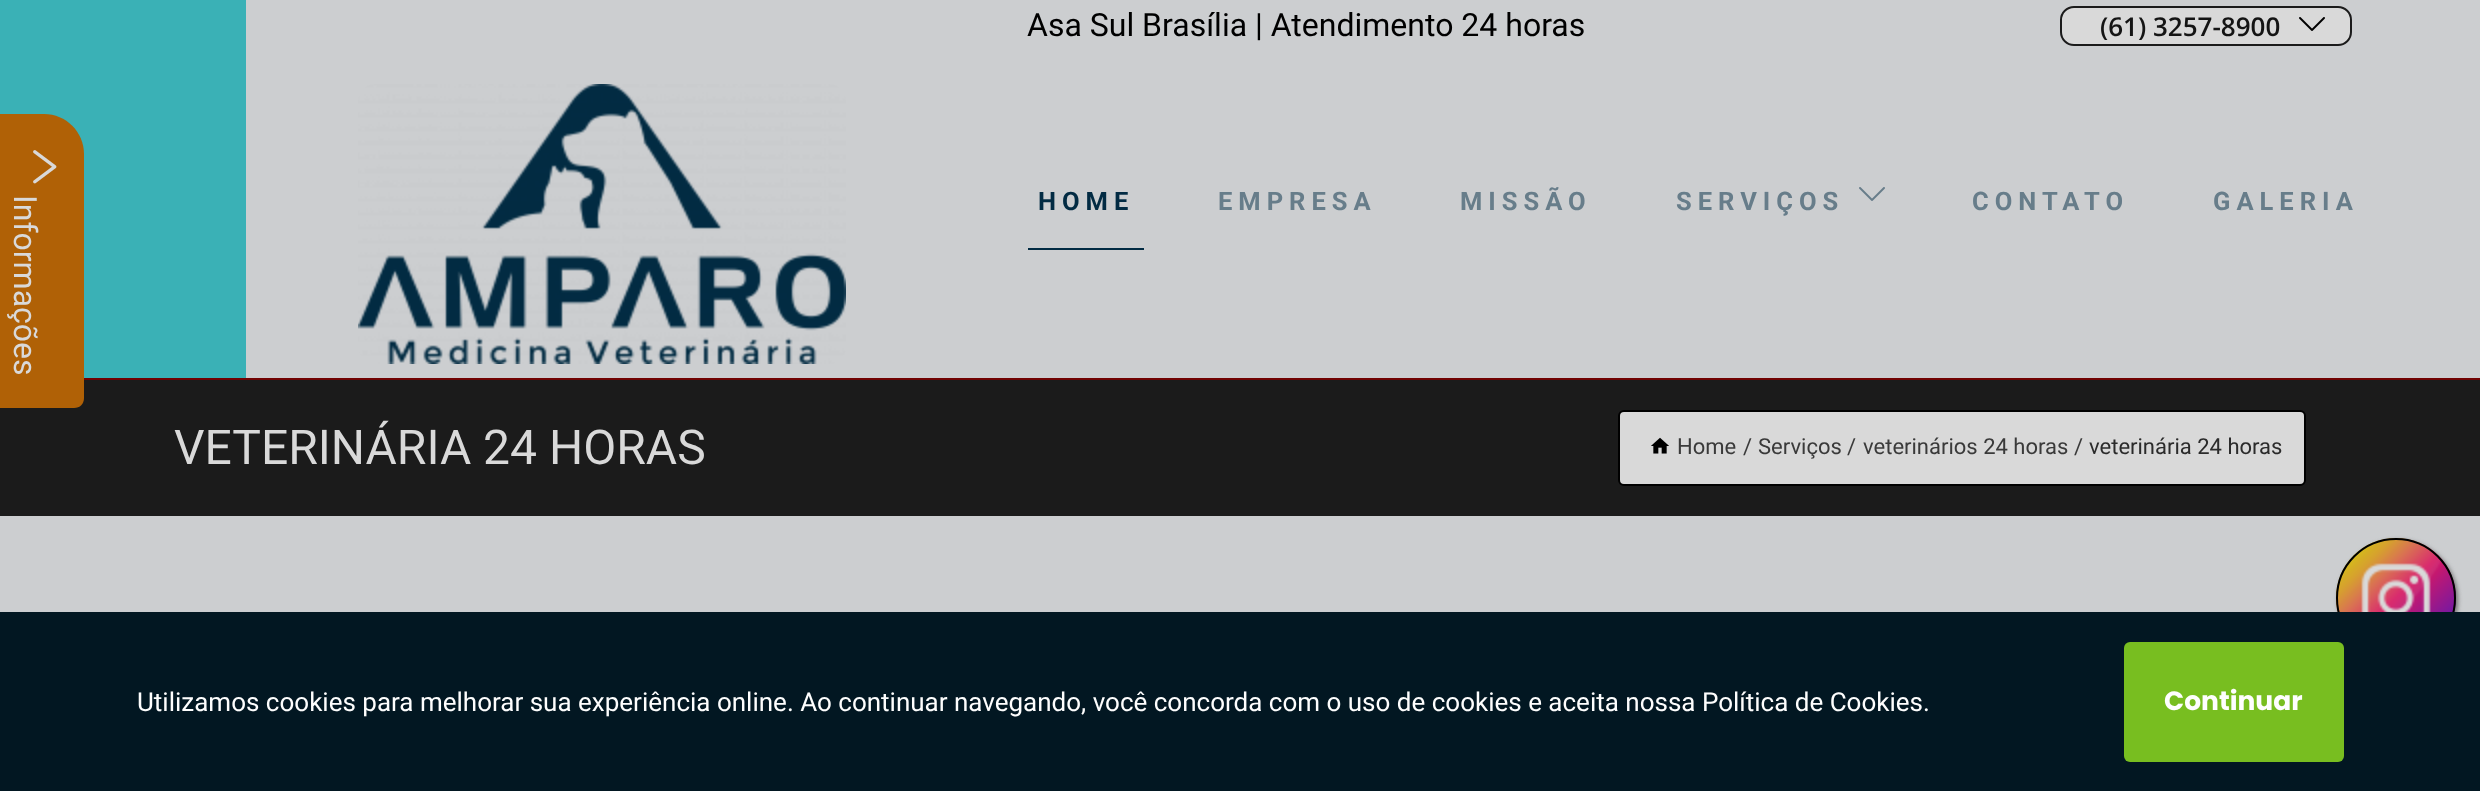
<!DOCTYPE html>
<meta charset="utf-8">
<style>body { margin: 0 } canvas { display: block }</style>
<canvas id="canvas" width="2480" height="791"></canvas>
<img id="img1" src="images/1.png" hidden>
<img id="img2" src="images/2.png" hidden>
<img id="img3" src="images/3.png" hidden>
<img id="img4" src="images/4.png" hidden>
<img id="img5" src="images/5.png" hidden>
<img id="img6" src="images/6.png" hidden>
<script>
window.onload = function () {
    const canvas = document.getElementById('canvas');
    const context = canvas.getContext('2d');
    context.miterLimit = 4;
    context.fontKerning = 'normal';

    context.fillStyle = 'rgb(204, 206, 208)';
    context.fillRect(0, 0, 2480, 791);
    context.fillStyle = 'rgb(58, 177, 182)';
    context.fillRect(0, 0, 246, 378);
    context.fillStyle = 'rgb(217, 217, 217)';
    context.beginPath();
    context.roundRect(2061, 7, 290, 38, 13);
    context.fill();
    context.strokeStyle = 'rgb(27, 27, 27)';
    context.lineWidth = 2;
    context.stroke();
    context.drawImage(document.getElementById('img1'), 2299, 17, 26, 14);
    context.drawImage(document.getElementById('img2'), 358, 84, 488, 280);
    context.fillStyle = 'rgb(2, 43, 67)';
    context.fillRect(1028, 248, 116, 2);
    context.drawImage(document.getElementById('img3'), 1859, 187, 26, 14);
    context.fillStyle = 'rgb(27, 27, 27)';
    context.fillRect(0, 380, 2480, 136);
    context.fillStyle = 'rgb(176, 97, 6)';
    context.beginPath();
    context.moveTo(84, 154);
    context.lineTo(84, 398);
    context.bezierCurveTo(84, 404, 80, 408, 74, 408);
    context.lineTo(-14, 408);
    context.lineTo(-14, 114);
    context.lineTo(44, 114);
    context.bezierCurveTo(66, 114, 84, 132, 84, 154);
    context.closePath();
    context.fill();
    context.drawImage(document.getElementById('img4'), 33, 150, 24, 34);
    context.fillStyle = 'rgb(112, 2, 2)';
    context.fillRect(84, 378, 2396, 2);
    context.fillStyle = 'rgb(217, 217, 217)';
    context.beginPath();
    context.roundRect(1619, 411, 686, 74, 5);
    context.fill();
    context.strokeStyle = 'rgb(0, 0, 0)';
    context.stroke();
    context.drawImage(document.getElementById('img5'), 1651, 437, 18, 17);
    context.fillStyle = 'rgb(116, 116, 116)';
    context.filter = 'blur(2px)';
    context.beginPath();
    context.roundRect(2338, 540, 120, 120, 60);
    context.fill();
    context.filter = 'none';
    context.drawImage(document.getElementById('img6'), 2336, 538, 120, 74);
    context.beginPath();
    context.arc(2396, 598, 59, 0, 2 * Math.PI);
    context.stroke();
    context.fillStyle = 'rgb(2, 23, 34)';
    context.fillRect(0, 612, 2480, 179);
    context.fillStyle = 'rgb(120, 190, 32)';
    context.beginPath();
    context.roundRect(2124, 642, 220, 120, 6);
    context.fill();
    context.font = '32px Roboto';
    context.fillStyle = 'rgb(0, 0, 0)';
    context.fillText('Asa Sul Brasília | Atendimento 24 horas', 1027, 36);
    context.font = '600 26px Open Sans';
    context.fillStyle = 'rgb(20, 20, 20)';
    context.fillText('(61) 3257-8900', 2100, 36);
    context.letterSpacing = '6px';
    context.font = 'bold 25.5px Roboto';
    context.fillStyle = 'rgb(2, 43, 67)';
    context.fillText('HOME', 1038, 210);
    context.fillStyle = 'rgb(103, 125, 138)';
    context.fillText('EMPRESA', 1218, 210);
    context.fillText('MISSÃO', 1460, 210);
    context.fillText('SERVIÇOS', 1676, 210);
    context.fillText('CONTATO', 1972, 210);
    context.fillText('GALERIA', 2213, 210);
    context.letterSpacing = '0px';
    context.font = '32px Roboto';
    context.fillStyle = 'rgb(217, 217, 217)';
    context.save();
    context.translate(14, 195);
    context.rotate(90 * Math.PI / 180);
    context.fillText('Informações', 0, 0);
    context.restore();
    context.font = '48px Roboto';
    context.fillText('VETERINÁRIA 24 HORAS', 174, 464);
    context.font = '22px Roboto';
    context.fillStyle = 'rgb(58, 58, 58)';
    context.fillText('Home', 1677, 454);
    context.fillText('/', 1743, 454);
    context.fillText('Serviços', 1758, 454);
    context.fillText('/', 1847, 454);
    context.fillText('veterinários 24 horas', 1863, 454);
    context.fillText('/', 2074, 454);
    context.fillStyle = 'rgb(43, 43, 43)';
    context.fillText('veterinária 24 horas', 2089, 454);
    context.font = '26px Roboto';
    context.fillStyle = 'rgb(254, 254, 254)';
    context.fillText('Utilizamos cookies para melhorar sua experiência online. Ao continuar navegando, você concorda com o uso de cookies e aceita nossa Política de Cookies.', 137, 711);
    context.font = 'bold 26.5px Poppins';
    context.fillText('Continuar', 2164, 710);
};
</script>
